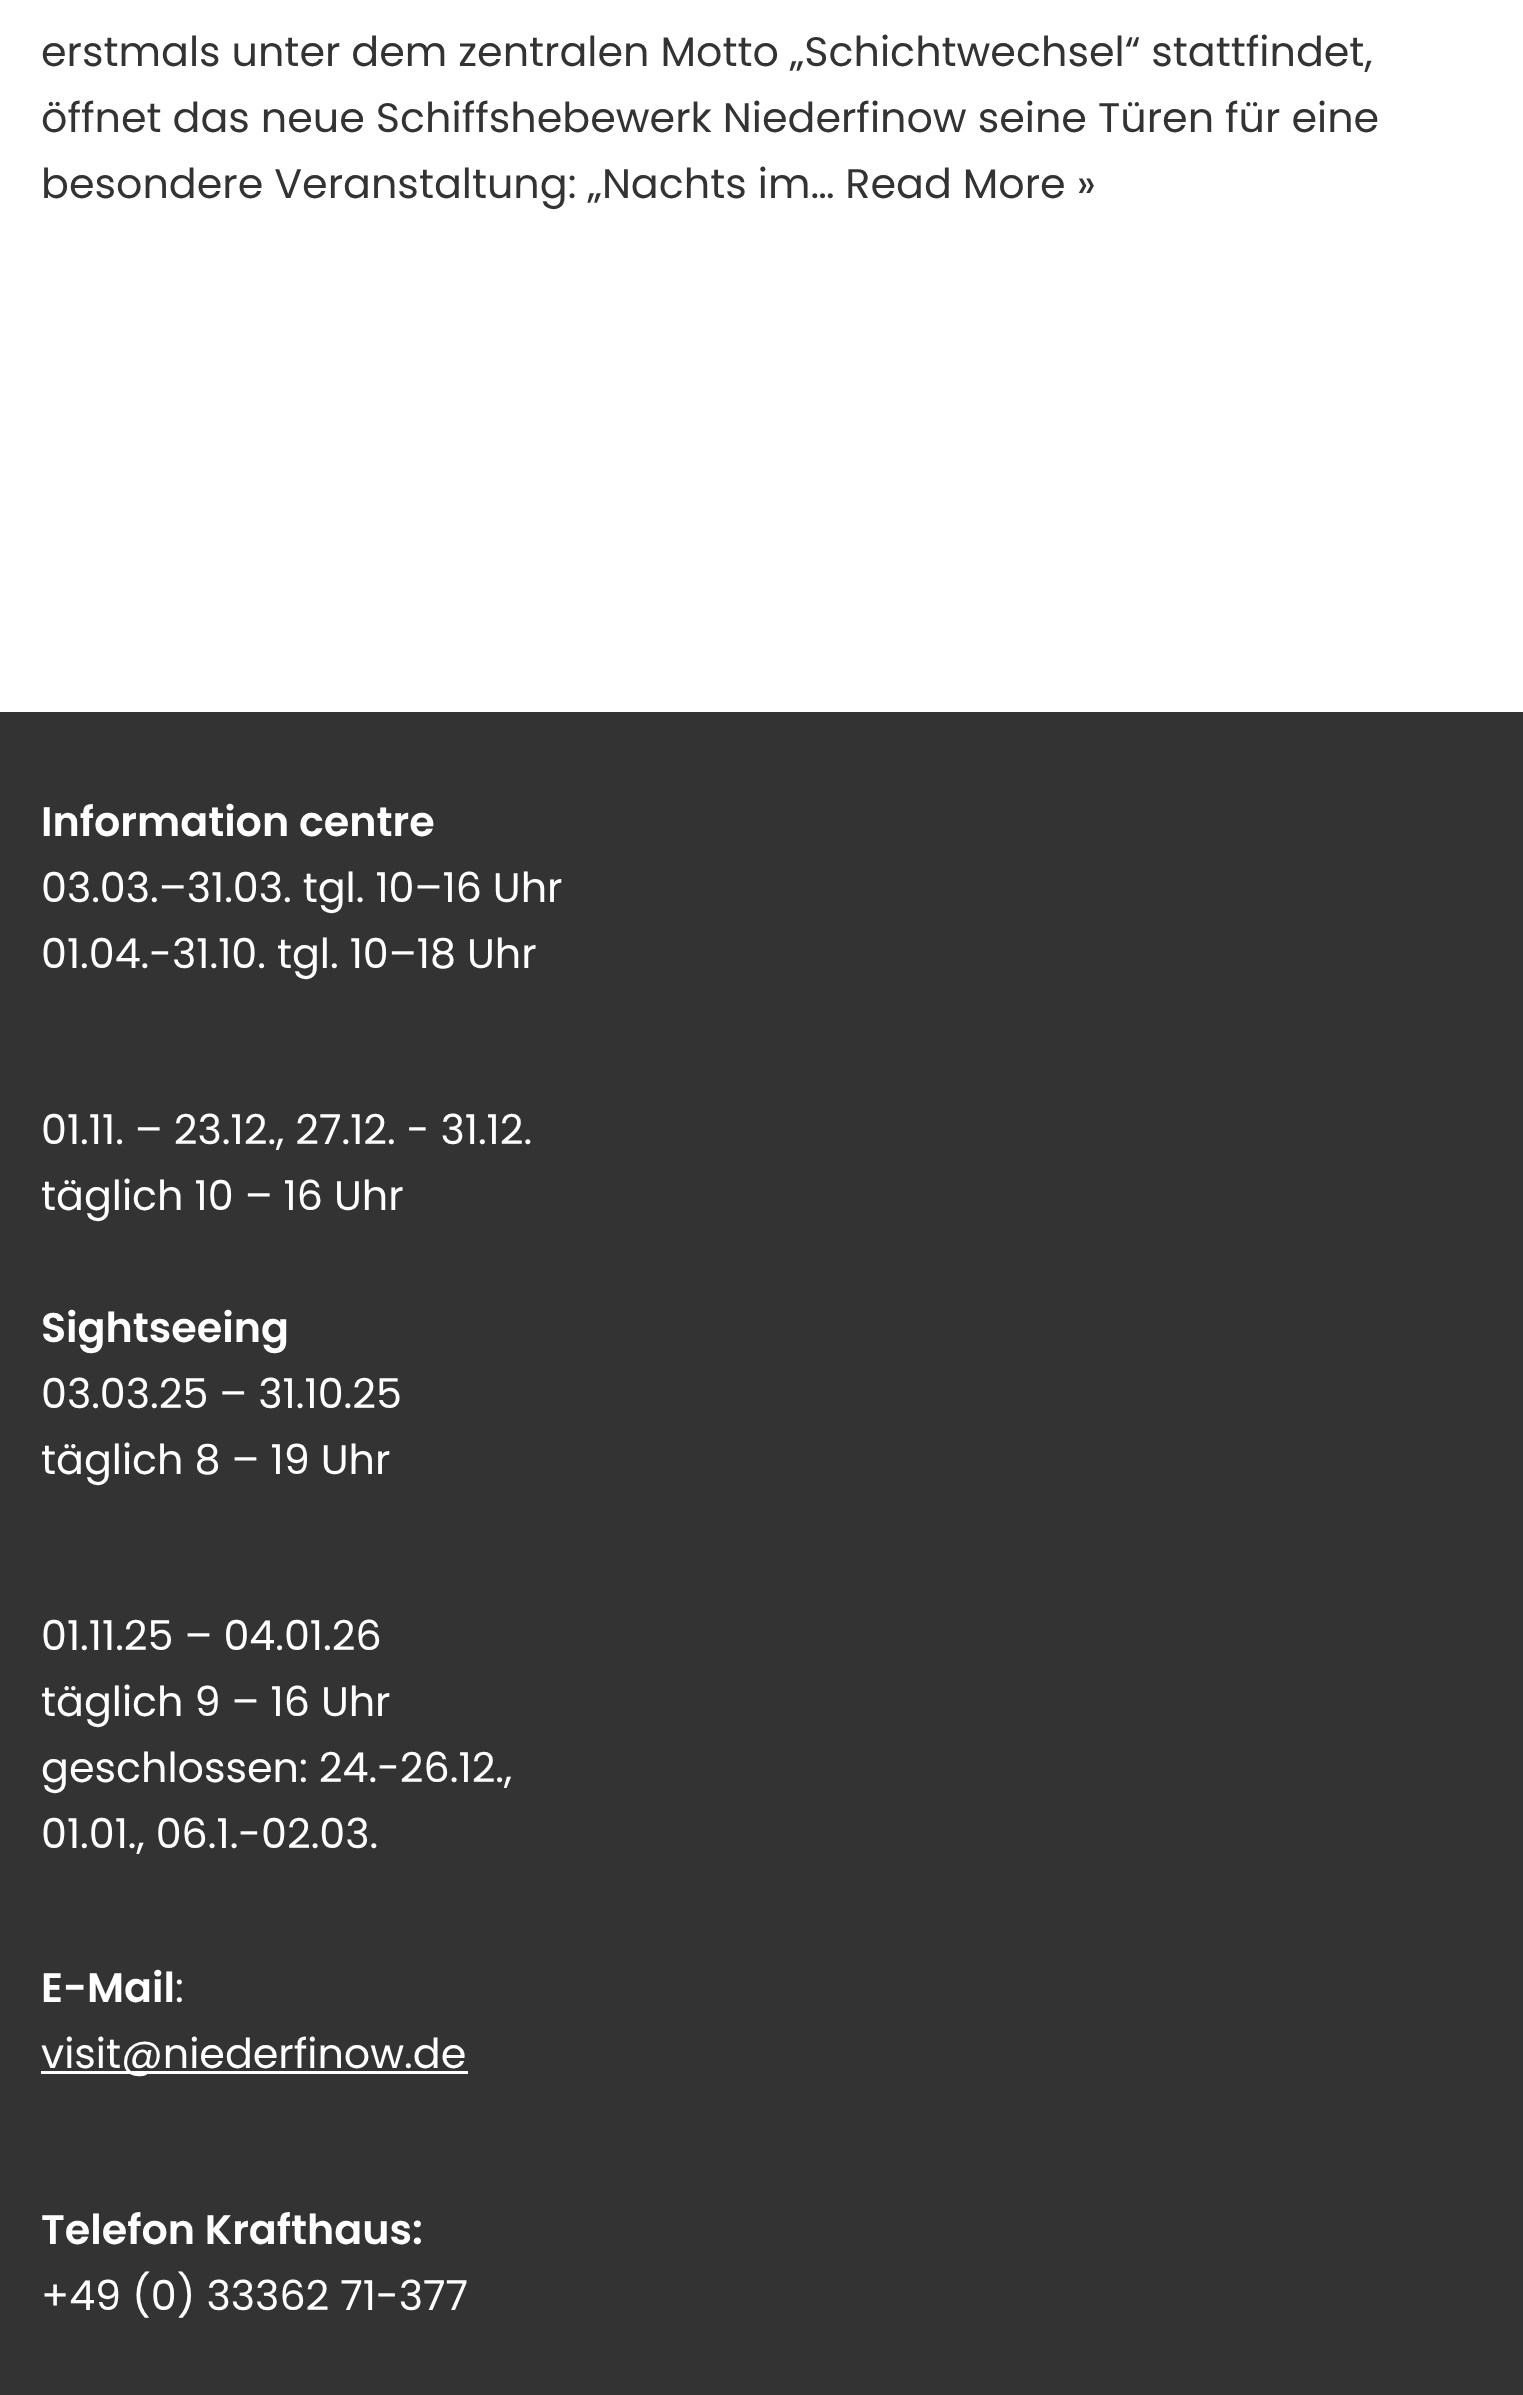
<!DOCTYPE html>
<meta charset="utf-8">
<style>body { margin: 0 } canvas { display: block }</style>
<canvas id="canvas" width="1523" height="2395"></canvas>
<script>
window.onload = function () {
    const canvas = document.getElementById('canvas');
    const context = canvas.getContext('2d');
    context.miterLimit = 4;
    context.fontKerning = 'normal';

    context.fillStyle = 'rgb(255, 255, 255)';
    context.fillRect(0, 0, 1523, 2395);
    context.fillStyle = 'rgb(51, 51, 51)';
    context.fillRect(0, 712, 1523, 1683);
    context.fillStyle = 'rgb(255, 255, 255)';
    context.fillRect(41, 2071, 427, 3);
    context.font = '41.25px Poppins';
    context.fillStyle = 'rgb(51, 51, 51)';
    context.fillText('erstmals unter dem zentralen Motto „Schichtwechsel“ stattfindet,', 41, 66);
    context.fillText('öffnet das neue Schiffshebewerk Niederfinow seine Türen für eine', 41, 132);
    context.fillText('besondere Veranstaltung: „Nachts im… Read More »', 41, 198);
    context.font = '600 41.25px Poppins';
    context.fillStyle = 'rgb(255, 255, 255)';
    context.fillText('Information centre', 41, 836);
    context.font = '41.25px Poppins';
    context.fillText('03.03.–31.03. tgl. 10–16 Uhr', 41, 902);
    context.fillText('01.04.-31.10. tgl. 10–18 Uhr', 41, 968);
    context.fillText('01.11. – 23.12., 27.12. - 31.12.', 41, 1144);
    context.fillText('täglich 10 – 16 Uhr', 41, 1210);
    context.font = '600 41.25px Poppins';
    context.fillText('Sightseeing', 41, 1342);
    context.font = '41.25px Poppins';
    context.fillText('03.03.25 – 31.10.25', 41, 1408);
    context.fillText('täglich 8 – 19 Uhr', 41, 1474);
    context.fillText('01.11.25 – 04.01.26', 41, 1650);
    context.fillText('täglich 9 – 16 Uhr', 41, 1716);
    context.fillText('geschlossen: 24.-26.12.,', 41, 1782);
    context.fillText('01.01., 06.1.-02.03.', 41, 1848);
    context.font = '600 41.25px Poppins';
    context.fillText('E-Mail', 41, 2002);
    context.font = '41.25px Poppins';
    context.fillText(':', 175, 2002);
    context.fillText('visit@niederfinow.de', 41, 2068);
    context.font = '600 41.25px Poppins';
    context.fillText('Telefon Krafthaus:', 41, 2244);
    context.font = '41.25px Poppins';
    context.fillText('+49 (0) 33362 71-377', 41, 2310);
};
</script>
